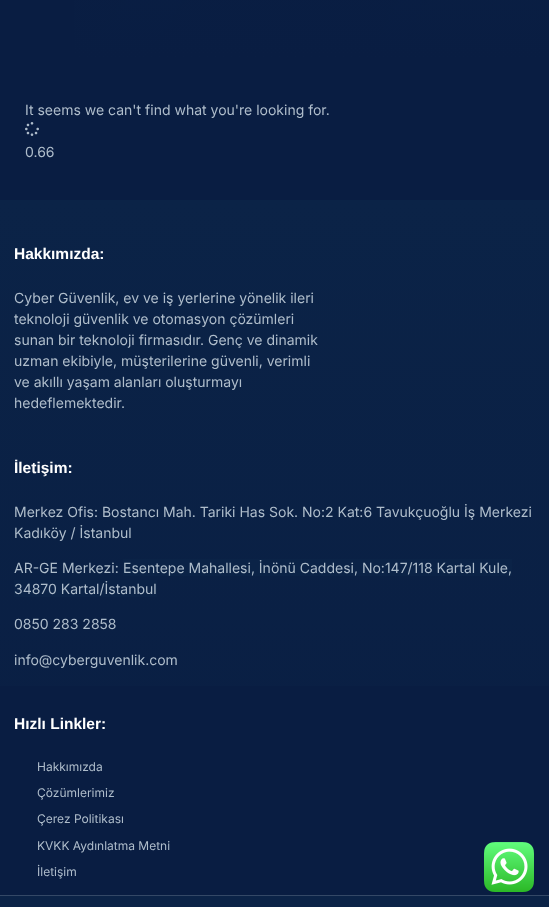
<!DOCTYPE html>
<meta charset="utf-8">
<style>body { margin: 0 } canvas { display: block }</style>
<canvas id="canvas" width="549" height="907"></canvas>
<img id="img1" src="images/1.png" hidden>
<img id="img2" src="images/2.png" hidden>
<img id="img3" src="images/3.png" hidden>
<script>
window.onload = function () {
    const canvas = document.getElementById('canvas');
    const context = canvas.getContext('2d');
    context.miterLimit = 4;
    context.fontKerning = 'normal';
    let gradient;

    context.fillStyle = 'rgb(9, 29, 66)';
    context.fillRect(0, 0, 549, 907);
    context.drawImage(document.getElementById('img1'), 74, 0, 475, 59);
    gradient = context.createLinearGradient(275, -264, 275, 61);
    gradient.addColorStop(0.1, 'rgba(9, 29, 66, 0.17)');
    gradient.addColorStop(1, 'rgb(9, 29, 66)');
    context.fillStyle = gradient;
    context.fillRect(74, 0, 475, 59);
    context.drawImage(document.getElementById('img2'), 25, 122, 14, 14);
    gradient = context.createLinearGradient(274, 200, 275, 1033);
    gradient.addColorStop(0, 'rgb(11, 35, 71)');
    gradient.addColorStop(1, 'rgb(9, 29, 66)');
    context.fillStyle = gradient;
    context.fillRect(0, 200, 549, 486);
    context.fillStyle = 'rgb(11, 35, 71)';
    context.fillRect(123, 559, 389, 17);
    context.fillRect(14, 580, 143, 17);
    context.fillRect(0, 896, 549, 11);
    context.fillStyle = 'rgb(52, 72, 102)';
    context.fillRect(0, 895, 549, 1);
    context.drawImage(document.getElementById('img3'), 484, 842, 50, 50);
    context.font = '14px Inter';
    context.fillStyle = 'rgb(175, 189, 203)';
    context.fillText('It seems we can\'t find what you\'re looking for.', 25, 115);
    context.fillText('0.66', 25, 157);
    context.font = 'bold 15.5px Liberation Sans';
    context.fillStyle = 'rgb(255, 255, 255)';
    context.fillText('Hakkımızda:', 14, 259);
    context.font = '14px Inter';
    context.fillStyle = 'rgb(175, 189, 203)';
    context.fillText('Cyber Güvenlik, ev ve iş yerlerine yönelik ileri', 14, 303);
    context.fillText('teknoloji güvenlik ve otomasyon çözümleri', 14, 324);
    context.fillText('sunan bir teknoloji firmasıdır. Genç ve dinamik', 14, 345);
    context.fillText('uzman ekibiyle, müşterilerine güvenli, verimli', 14, 366);
    context.fillText('ve akıllı yaşam alanları oluşturmayı', 14, 387);
    context.fillText('hedeflemektedir.', 14, 408);
    context.font = 'bold 15.5px Liberation Sans';
    context.fillStyle = 'rgb(255, 255, 255)';
    context.fillText('İletişim:', 14, 473);
    context.font = '14px Inter';
    context.fillStyle = 'rgb(175, 189, 203)';
    context.fillText('Merkez Ofis: Bostancı Mah. Tariki Has Sok. No:2 Kat:6 Tavukçuoğlu İş Merkezi', 14, 517);
    context.fillText('Kadıköy / İstanbul', 14, 538);
    context.fillText('AR-GE Merkezi:', 14, 573);
    context.fillText('Esentepe Mahallesi, İnönü Caddesi, No:147/118 Kartal Kule,', 123, 573);
    context.fillText('34870 Kartal/İstanbul', 14, 594);
    context.fillText('0850 283 2858', 14, 629);
    context.fillText('info@cyberguvenlik.com', 14, 665);
    context.font = 'bold 15.5px Liberation Sans';
    context.fillStyle = 'rgb(255, 255, 255)';
    context.fillText('Hızlı Linkler:', 14, 729);
    context.font = '12px Inter';
    context.fillStyle = 'rgb(175, 189, 203)';
    context.fillText('Hakkımızda', 37, 771);
    context.fillText('Çözümlerimiz', 37, 797);
    context.fillText('Çerez Politikası', 37, 823);
    context.fillText('KVKK Aydınlatma Metni', 37, 850);
    context.fillText('İletişim', 37, 876);
};
</script>
